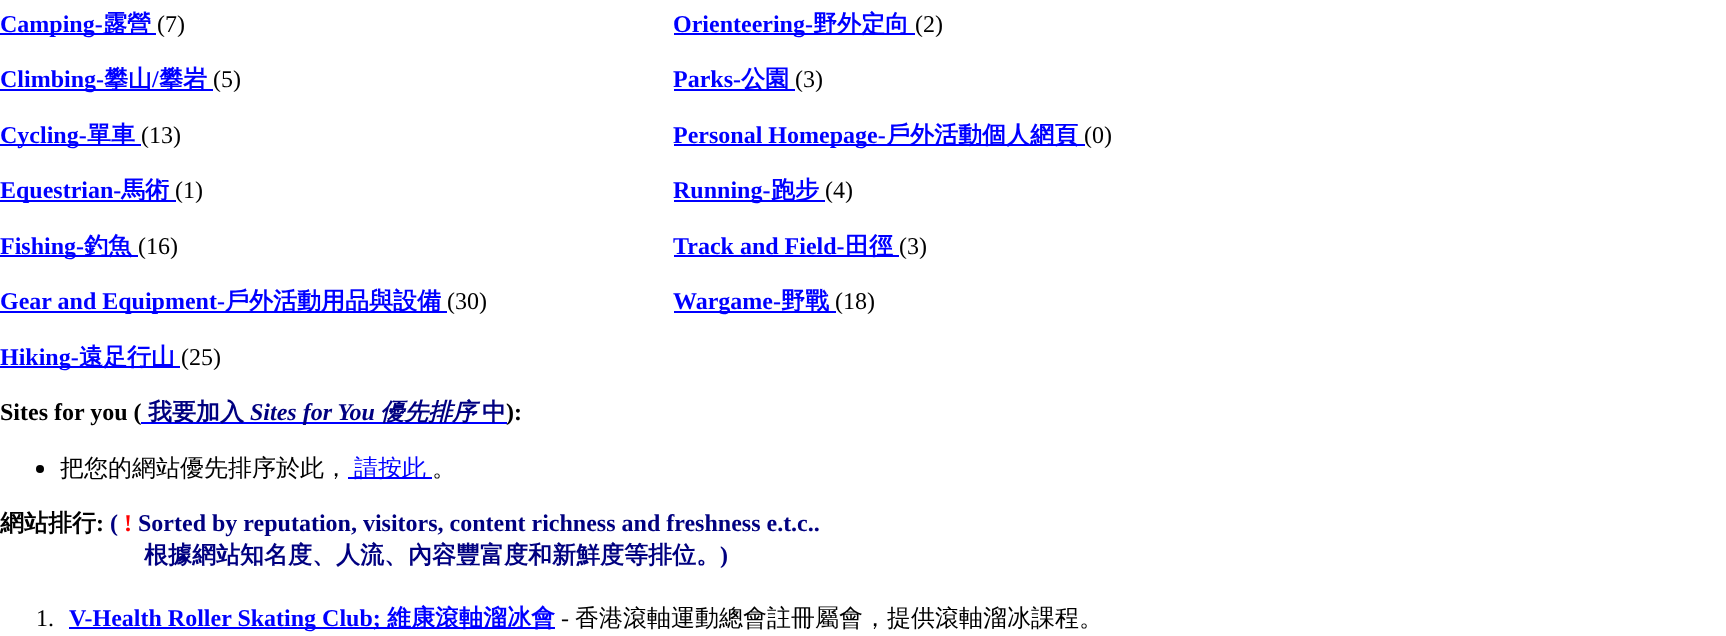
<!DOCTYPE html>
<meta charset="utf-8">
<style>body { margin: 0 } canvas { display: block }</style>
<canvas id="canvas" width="1726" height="636"></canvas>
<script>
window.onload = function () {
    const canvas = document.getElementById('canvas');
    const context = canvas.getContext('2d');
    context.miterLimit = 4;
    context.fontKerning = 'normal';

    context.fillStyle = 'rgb(255, 255, 255)';
    context.fillRect(0, 0, 1726, 636);
    context.fillStyle = 'rgb(0, 0, 255)';
    context.fillRect(0, 33, 156, 2);
    context.fillRect(0, 89, 213, 2);
    context.fillRect(0, 144, 141, 2);
    context.fillRect(0, 200, 176, 2);
    context.fillRect(0, 255, 138, 2);
    context.fillRect(0, 311, 447, 2);
    context.fillRect(0, 366, 180, 2);
    context.fillRect(674, 33, 241, 2);
    context.fillRect(674, 89, 121, 2);
    context.fillRect(674, 144, 411, 2);
    context.fillRect(674, 200, 151, 2);
    context.fillRect(674, 255, 225, 2);
    context.fillRect(674, 311, 162, 2);
    context.fillRect(141, 422, 366, 2);
    context.fillStyle = 'rgb(0, 0, 0)';
    context.beginPath();
    context.arc(40, 469, 4, 0, 2 * Math.PI);
    context.fill();
    context.fillStyle = 'rgb(0, 0, 255)';
    context.fillRect(348, 477, 84, 2);
    context.fillRect(69, 627, 486, 2);
    context.font = 'bold 24px Liberation Serif';
    context.fillText('Camping-', 0, 32);
    context.font = 'bold 24px WenQuanYi Zen Hei';
    context.fillText('露營', 103, 32);
    context.font = '24px Liberation Serif';
    context.fillStyle = 'rgb(0, 0, 0)';
    context.fillText('(7)', 157, 32);
    context.font = 'bold 24px Liberation Serif';
    context.fillStyle = 'rgb(0, 0, 255)';
    context.fillText('Climbing-', 0, 87);
    context.font = 'bold 24px WenQuanYi Zen Hei';
    context.fillText('攀山', 104, 87);
    context.font = 'bold 24px Liberation Serif';
    context.fillText('/', 152, 87);
    context.font = 'bold 24px WenQuanYi Zen Hei';
    context.fillText('攀岩', 159, 87);
    context.font = '24px Liberation Serif';
    context.fillStyle = 'rgb(0, 0, 0)';
    context.fillText('(5)', 213, 87);
    context.font = 'bold 24px Liberation Serif';
    context.fillStyle = 'rgb(0, 0, 255)';
    context.fillText('Cycling-', 0, 143);
    context.font = 'bold 24px WenQuanYi Zen Hei';
    context.fillText('單車', 87, 143);
    context.font = '24px Liberation Serif';
    context.fillStyle = 'rgb(0, 0, 0)';
    context.fillText('(13)', 141, 143);
    context.font = 'bold 24px Liberation Serif';
    context.fillStyle = 'rgb(0, 0, 255)';
    context.fillText('Equestrian-', 0, 198);
    context.font = 'bold 24px WenQuanYi Zen Hei';
    context.fillText('馬術', 121, 198);
    context.font = '24px Liberation Serif';
    context.fillStyle = 'rgb(0, 0, 0)';
    context.fillText('(1)', 175, 198);
    context.font = 'bold 24px Liberation Serif';
    context.fillStyle = 'rgb(0, 0, 255)';
    context.fillText('Fishing-', 0, 254);
    context.font = 'bold 24px WenQuanYi Zen Hei';
    context.fillText('釣魚', 84, 254);
    context.font = '24px Liberation Serif';
    context.fillStyle = 'rgb(0, 0, 0)';
    context.fillText('(16)', 138, 254);
    context.font = 'bold 24px Liberation Serif';
    context.fillStyle = 'rgb(0, 0, 255)';
    context.fillText('Gear and Equipment-', 0, 309);
    context.font = 'bold 24px WenQuanYi Zen Hei';
    context.fillText('戶外活動用品與設備', 225, 309);
    context.font = '24px Liberation Serif';
    context.fillStyle = 'rgb(0, 0, 0)';
    context.fillText('(30)', 447, 309);
    context.font = 'bold 24px Liberation Serif';
    context.fillStyle = 'rgb(0, 0, 255)';
    context.fillText('Hiking-', 0, 365);
    context.font = 'bold 24px WenQuanYi Zen Hei';
    context.fillText('遠足行山', 79, 365);
    context.font = '24px Liberation Serif';
    context.fillStyle = 'rgb(0, 0, 0)';
    context.fillText('(25)', 181, 365);
    context.font = 'bold 24px Liberation Serif';
    context.fillStyle = 'rgb(0, 0, 255)';
    context.fillText('Orienteering-', 673, 32);
    context.font = 'bold 24px WenQuanYi Zen Hei';
    context.fillText('野外定向', 813, 32);
    context.font = '24px Liberation Serif';
    context.fillStyle = 'rgb(0, 0, 0)';
    context.fillText('(2)', 915, 32);
    context.font = 'bold 24px Liberation Serif';
    context.fillStyle = 'rgb(0, 0, 255)';
    context.fillText('Parks-', 673, 87);
    context.font = 'bold 24px WenQuanYi Zen Hei';
    context.fillText('公園', 741, 87);
    context.font = '24px Liberation Serif';
    context.fillStyle = 'rgb(0, 0, 0)';
    context.fillText('(3)', 795, 87);
    context.font = 'bold 24px Liberation Serif';
    context.fillStyle = 'rgb(0, 0, 255)';
    context.fillText('Personal Homepage-', 673, 143);
    context.font = 'bold 24px WenQuanYi Zen Hei';
    context.fillText('戶外活動個人網頁', 886, 143);
    context.font = '24px Liberation Serif';
    context.fillStyle = 'rgb(0, 0, 0)';
    context.fillText('(0)', 1084, 143);
    context.font = 'bold 24px Liberation Serif';
    context.fillStyle = 'rgb(0, 0, 255)';
    context.fillText('Running-', 673, 198);
    context.font = 'bold 24px WenQuanYi Zen Hei';
    context.fillText('跑步', 771, 198);
    context.font = '24px Liberation Serif';
    context.fillStyle = 'rgb(0, 0, 0)';
    context.fillText('(4)', 825, 198);
    context.font = 'bold 24px Liberation Serif';
    context.fillStyle = 'rgb(0, 0, 255)';
    context.fillText('Track and Field-', 673, 254);
    context.font = 'bold 24px WenQuanYi Zen Hei';
    context.fillText('田徑', 845, 254);
    context.font = '24px Liberation Serif';
    context.fillStyle = 'rgb(0, 0, 0)';
    context.fillText('(3)', 899, 254);
    context.font = 'bold 24px Liberation Serif';
    context.fillStyle = 'rgb(0, 0, 255)';
    context.fillText('Wargame-', 673, 309);
    context.font = 'bold 24px WenQuanYi Zen Hei';
    context.fillText('野戰', 781, 309);
    context.font = '24px Liberation Serif';
    context.fillStyle = 'rgb(0, 0, 0)';
    context.fillText('(18)', 835, 309);
    context.font = 'bold 24px Liberation Serif';
    context.fillText('Sites for you (', 0, 420);
    context.font = 'bold 24px WenQuanYi Zen Hei';
    context.fillStyle = 'rgb(0, 0, 128)';
    context.fillText('我要加入', 148, 420);
    context.font = 'italic bold 24px Liberation Serif';
    context.fillText('Sites for You', 250, 420);
    context.font = 'italic bold 24px WenQuanYi Zen Hei';
    context.fillText('優先排序', 380, 420);
    context.font = 'bold 24px WenQuanYi Zen Hei';
    context.fillText('中', 482, 420);
    context.font = 'bold 24px Liberation Serif';
    context.fillStyle = 'rgb(0, 0, 0)';
    context.fillText('):', 506, 420);
    context.font = '500 24px WenQuanYi Zen Hei';
    context.fillText('把您的網站優先排序於此，', 60, 476);
    context.fillStyle = 'rgb(0, 0, 255)';
    context.fillText('請按此', 354, 476);
    context.fillStyle = 'rgb(0, 0, 0)';
    context.fillText('。', 432, 476);
    context.font = 'bold 24px WenQuanYi Zen Hei';
    context.fillText('網站排行', 0, 531);
    context.font = 'bold 24px Liberation Serif';
    context.fillText(':', 96, 531);
    context.fillStyle = 'rgb(0, 0, 128)';
    context.fillText('(', 110, 531);
    context.fillStyle = 'rgb(255, 0, 0)';
    context.fillText('!', 124, 531);
    context.fillStyle = 'rgb(0, 0, 128)';
    context.fillText('Sorted by reputation, visitors, content richness and freshness e.t.c..', 138, 531);
    context.font = 'bold 24px WenQuanYi Zen Hei';
    context.fillText('根據網站知名度、人流、內容豐富度和新鮮度等排位。', 144, 563);
    context.font = 'bold 24px Liberation Serif';
    context.fillText(')', 720, 563);
    context.font = '24px Liberation Serif';
    context.fillStyle = 'rgb(0, 0, 0)';
    context.fillText('1.', 36, 626);
    context.font = 'bold 24px Liberation Serif';
    context.fillStyle = 'rgb(0, 0, 255)';
    context.fillText('V-Health Roller Skating Club;', 69, 626);
    context.font = 'bold 24px WenQuanYi Zen Hei';
    context.fillText('維康滾軸溜冰會', 387, 626);
    context.font = '24px Liberation Serif';
    context.fillStyle = 'rgb(0, 0, 0)';
    context.fillText('-', 561, 626);
    context.font = '500 24px WenQuanYi Zen Hei';
    context.fillText('香港滾軸運動總會註冊屬會，提供滾軸溜冰課程。', 575, 626);
};
</script>
